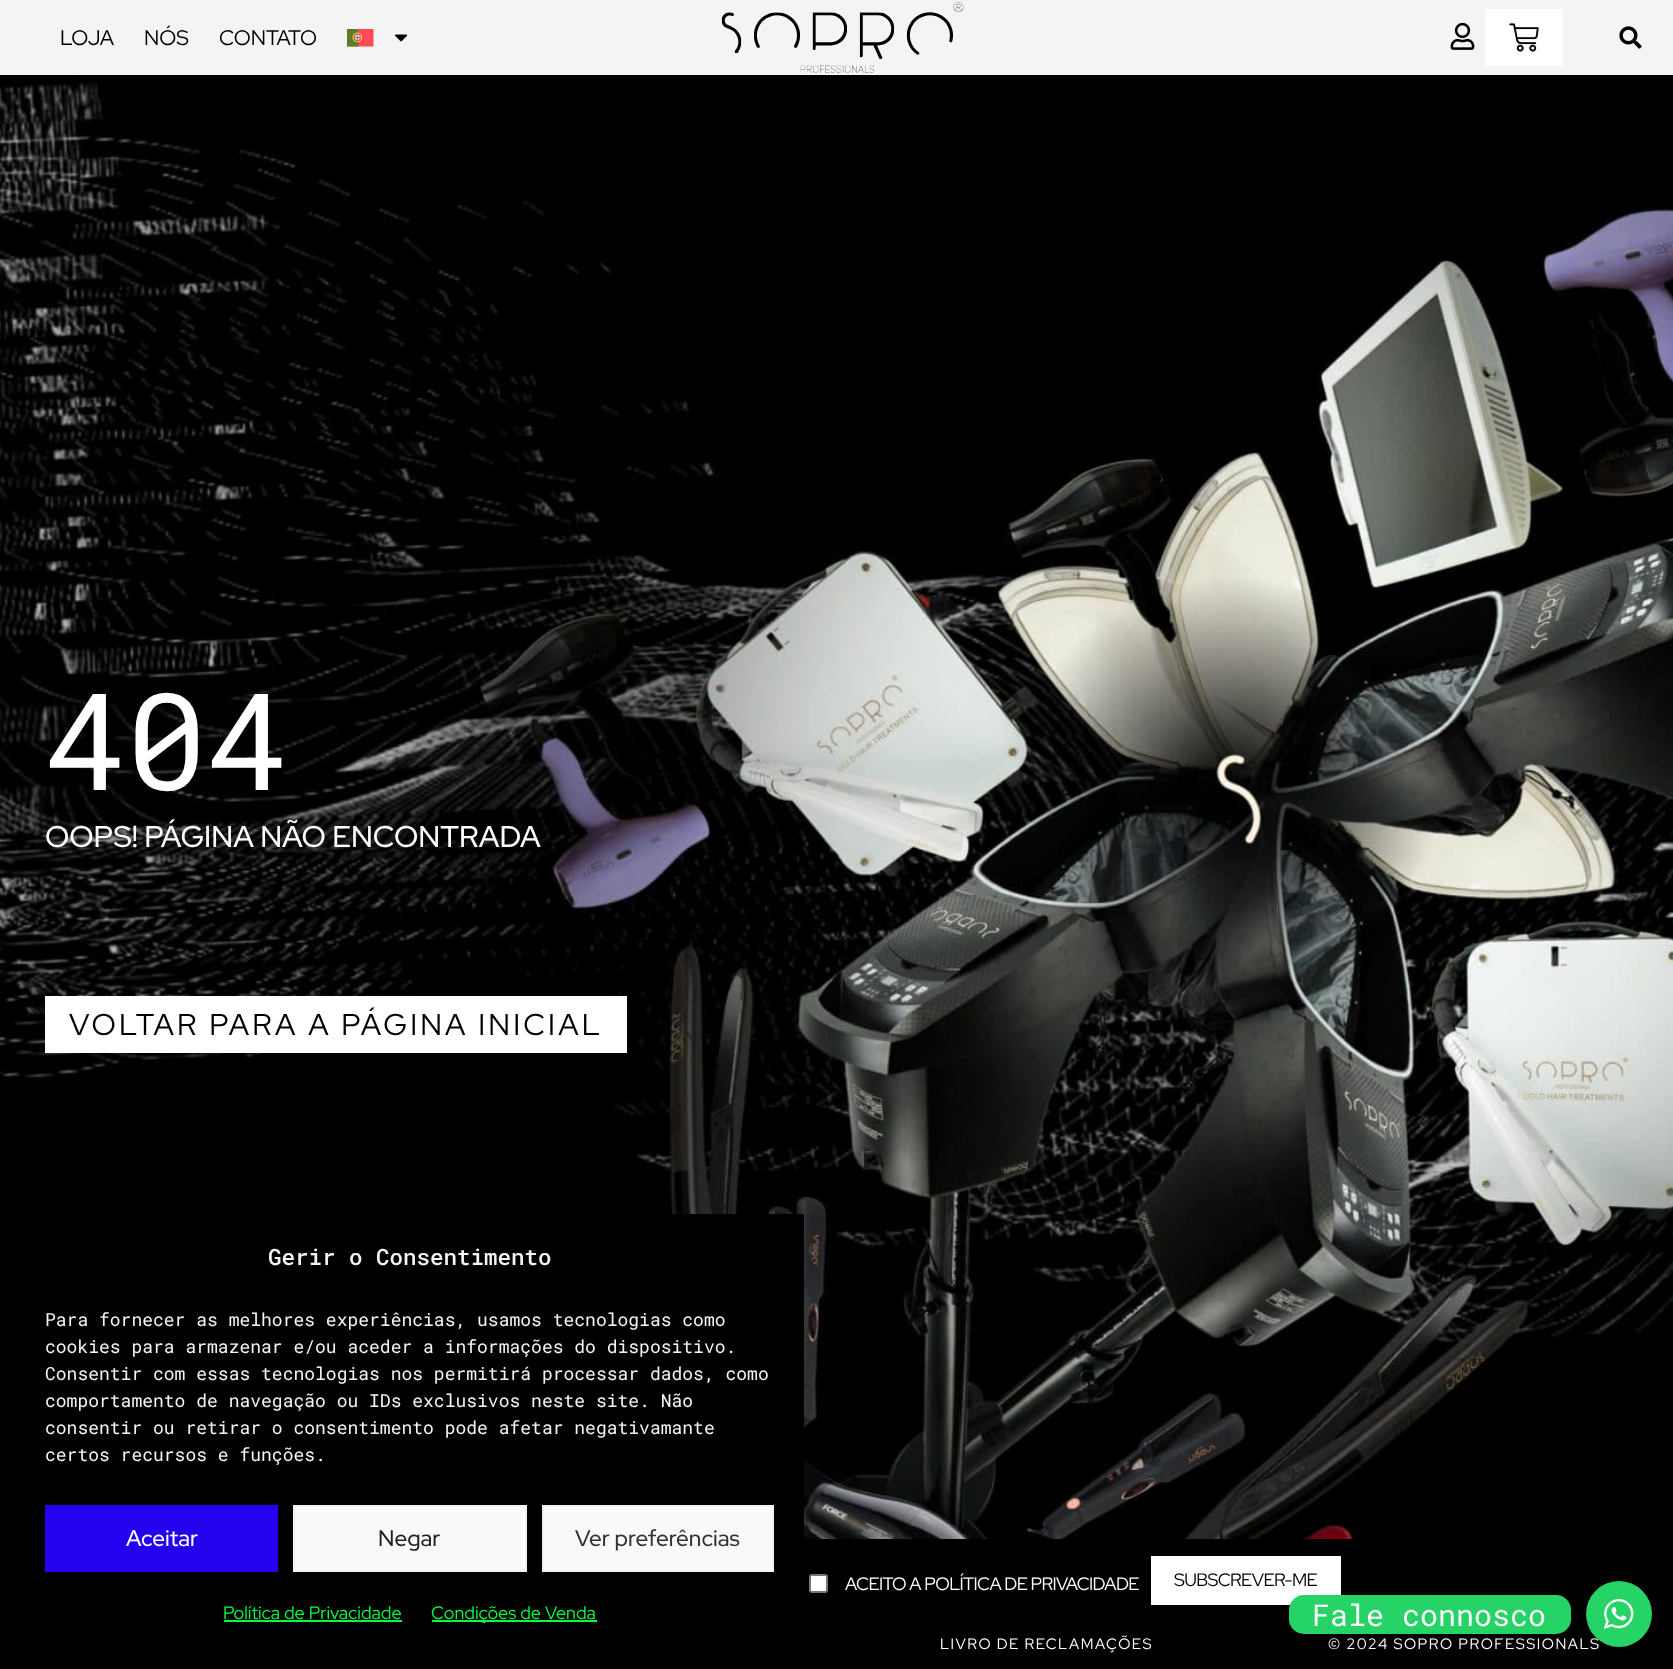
<!DOCTYPE html>
<meta charset="utf-8">
<style>body { margin: 0 } canvas { display: block }</style>
<canvas id="canvas" width="1673" height="1669"></canvas>
<img id="img1" src="images/1.png" hidden>
<img id="img2" src="images/2.png" hidden>
<img id="img3" src="images/3.png" hidden>
<img id="img4" src="images/4.png" hidden>
<img id="img5" src="images/5.png" hidden>
<img id="img6" src="images/6.png" hidden>
<img id="img7" src="images/7.png" hidden>
<img id="img8" src="images/8.png" hidden>
<script>
window.onload = function () {
    const canvas = document.getElementById('canvas');
    const context = canvas.getContext('2d');
    context.miterLimit = 4;
    context.fontKerning = 'normal';

    context.fillStyle = 'rgb(244, 244, 244)';
    context.fillRect(0, 0, 1673, 1669);
    context.fillStyle = 'rgb(0, 0, 0)';
    context.fillRect(0, 75, 1673, 2);
    context.drawImage(document.getElementById('img1'), 347, 29, 27, 18);
    context.drawImage(document.getElementById('img2'), 395, 34, 13, 8);
    context.drawImage(document.getElementById('img3'), 721, 2, 243, 71);
    context.drawImage(document.getElementById('img4'), 1450, 22, 25, 28);
    context.fillStyle = 'rgb(255, 255, 255)';
    context.fillRect(1485, 9, 78, 57);
    context.drawImage(document.getElementById('img5'), 1509, 23, 30, 29);
    context.drawImage(document.getElementById('img6'), 1619, 26, 23, 23);
    context.drawImage(document.getElementById('img7'), 0, 77, 1673, 1462);
    context.fillRect(45, 996, 582, 57);
    context.fillStyle = 'rgb(0, 0, 0)';
    context.fillRect(598, 1214, 206, 325);
    context.fillRect(0, 1539, 1673, 130);
    context.fillStyle = 'rgb(36, 2, 237)';
    context.fillRect(45, 1505, 233, 67);
    context.fillStyle = 'rgb(249, 249, 249)';
    context.beginPath();
    context.rect(294, 1506, 232, 65);
    context.fill();
    context.strokeStyle = 'rgb(242, 242, 242)';
    context.lineWidth = 2;
    context.stroke();
    context.beginPath();
    context.rect(543, 1506, 230, 65);
    context.fill();
    context.stroke();
    context.fillStyle = 'rgb(0, 255, 67)';
    context.fillRect(224, 1620, 178, 2);
    context.fillRect(432, 1620, 165, 2);
    context.fillStyle = 'rgb(255, 255, 255)';
    context.beginPath();
    context.roundRect(810, 1575, 17, 17, 2);
    context.fill();
    context.strokeStyle = 'rgb(118, 118, 118)';
    context.stroke();
    context.fillRect(1151, 1556, 190, 49);
    context.fillStyle = 'rgb(37, 211, 102)';
    context.beginPath();
    context.roundRect(1289, 1595, 282, 39, 15);
    context.fill();
    context.font = '21px Red Hat Display';
    context.fillStyle = 'rgb(0, 0, 0)';
    context.fillText('LOJA', 60, 45);
    context.fillText('NÓS', 144, 45);
    context.fillText('CONTATO', 219, 45);
    context.font = '135px Roboto Mono';
    context.fillStyle = 'rgb(255, 255, 255)';
    context.fillText('404', 45, 790);
    context.font = '500 30px Red Hat Display';
    context.fillText('OOPS! PÁGINA NÃO ENCONTRADA', 45, 847);
    context.letterSpacing = '3.15px';
    context.font = '30px Red Hat Display';
    context.fillStyle = 'rgb(0, 0, 0)';
    context.fillText('VOLTAR PARA A PÁGINA INICIAL', 69, 1035);
    context.letterSpacing = '0px';
    context.font = '500 22.5px Roboto Mono';
    context.fillStyle = 'rgb(244, 244, 244)';
    context.fillText('Gerir o Consentimento', 268, 1265);
    context.font = '18px Roboto Mono';
    context.fillText('Para fornecer as melhores experiências, usamos tecnologias como', 45, 1326);
    context.fillText('cookies para armazenar e/ou aceder a informações do dispositivo.', 45, 1353);
    context.fillText('Consentir com essas tecnologias nos permitirá processar dados, como', 45, 1380);
    context.fillText('comportamento de navegação ou IDs exclusivos neste site. Não', 45, 1407);
    context.fillText('consentir ou retirar o consentimento pode afetar negativamante', 45, 1434);
    context.fillText('certos recursos e funções.', 45, 1461);
    context.font = '500 22.5px Red Hat Display';
    context.fillStyle = 'rgb(255, 255, 255)';
    context.fillText('Aceitar', 126, 1546);
    context.fillStyle = 'rgb(34, 34, 34)';
    context.fillText('Negar', 378, 1546);
    context.fillStyle = 'rgb(51, 51, 51)';
    context.fillText('Ver preferências', 575, 1546);
    context.font = '18px Red Hat Display';
    context.fillStyle = 'rgb(0, 255, 67)';
    context.fillText('Política de Privacidade', 223, 1619);
    context.fillText('Condições de Venda', 431, 1619);
    context.letterSpacing = '-0.6px';
    context.fillStyle = 'rgb(255, 255, 255)';
    context.fillText('ACEITO A POLÍTICA DE PRIVACIDADE', 845, 1590);
    context.fillStyle = 'rgb(0, 0, 0)';
    context.fillText('SUBSCREVER-ME', 1174, 1586);
    context.letterSpacing = '1.5px';
    context.font = '15px Red Hat Display';
    context.fillStyle = 'rgb(255, 255, 255)';
    context.fillText('LIVRO DE RECLAMAÇÕES', 940, 1649);
    context.fillText('© 2024 SOPRO PROFESSIONALS', 1328, 1649);
    context.letterSpacing = '0px';
    context.font = '30px Roboto Mono';
    context.fillText('Fale connosco', 1312, 1626);
    context.fillStyle = 'rgb(37, 211, 102)';
    context.beginPath();
    context.arc(1619, 1614, 33, 0, 2 * Math.PI);
    context.fill();
    context.drawImage(document.getElementById('img8'), 1604, 1599, 30, 30);
};
</script>
